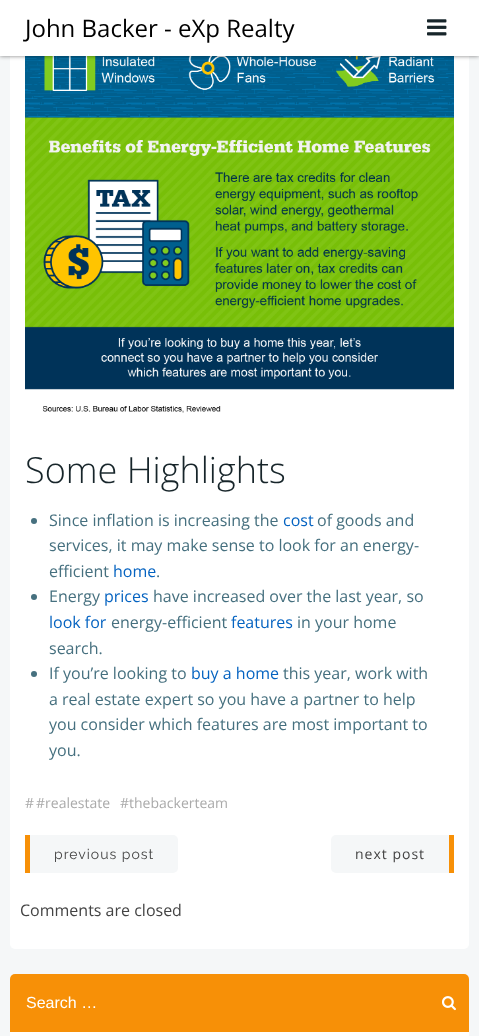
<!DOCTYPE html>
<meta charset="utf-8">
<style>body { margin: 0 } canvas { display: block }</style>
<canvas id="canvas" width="479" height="1036"></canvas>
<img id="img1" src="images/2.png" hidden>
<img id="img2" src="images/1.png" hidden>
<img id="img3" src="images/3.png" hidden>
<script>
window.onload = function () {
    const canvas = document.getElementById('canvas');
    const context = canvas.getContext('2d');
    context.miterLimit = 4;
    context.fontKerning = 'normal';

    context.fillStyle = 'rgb(245, 247, 248)';
    context.fillRect(0, 0, 479, 1036);
    context.fillStyle = 'rgb(255, 255, 255)';
    context.beginPath();
    context.roundRect(10, -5, 459, 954, 5);
    context.fill();
    context.drawImage(document.getElementById('img1'), 25, 56, 429, 357);
    context.fillStyle = 'rgba(0, 0, 0, 0.5)';
    context.filter = 'blur(2px)';
    context.beginPath();
    context.rect(0, 0, 479, 56);
    context.fill();
    context.filter = 'none';
    context.fillStyle = 'rgb(255, 255, 255)';
    context.fillRect(0, 0, 479, 56);
    context.drawImage(document.getElementById('img2'), 427, 19, 20, 17);
    context.fillStyle = 'rgb(70, 112, 127)';
    context.beginPath();
    context.arc(34, 521, 3, 0, 2 * Math.PI);
    context.fill();
    context.beginPath();
    context.arc(34, 597, 3, 0, 2 * Math.PI);
    context.fill();
    context.beginPath();
    context.arc(34, 674, 3, 0, 2 * Math.PI);
    context.fill();
    context.fillStyle = 'rgb(245, 247, 248)';
    context.beginPath();
    context.roundRect(30, 835, 148, 38, [0, 5, 5, 0]);
    context.fill();
    context.fillStyle = 'rgb(247, 144, 7)';
    context.fillRect(25, 835, 5, 38);
    context.fillStyle = 'rgb(245, 247, 248)';
    context.beginPath();
    context.roundRect(331, 835, 118, 38, [5, 0, 0, 5]);
    context.fill();
    context.fillStyle = 'rgb(247, 144, 7)';
    context.fillRect(449, 835, 5, 38);
    context.fillStyle = 'rgb(255, 255, 255)';
    context.beginPath();
    context.roundRect(10, 974, 459, 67, 5);
    context.fill();
    context.fillStyle = 'rgb(247, 144, 7)';
    context.beginPath();
    context.roundRect(10, 974, 459, 58, [5, 5, 0, 0]);
    context.fill();
    context.drawImage(document.getElementById('img3'), 442, 996, 14, 15);
    context.font = '24px Open Sans';
    context.fillStyle = 'rgb(0, 0, 0)';
    context.fillText('John Backer - eXp Realty', 25, 37);
    context.font = '300 36px Open Sans';
    context.fillStyle = 'rgb(23, 37, 42)';
    context.fillText('Some Highlights', 25, 483);
    context.font = '16px Open Sans';
    context.fillStyle = 'rgb(70, 112, 127)';
    context.fillText('Since inflation is increasing the', 49, 526);
    context.fillStyle = 'rgb(5, 99, 193)';
    context.fillText('cost', 283, 526);
    context.fillStyle = 'rgb(70, 112, 127)';
    context.fillText('of goods and', 317, 526);
    context.fillText('services, it may make sense to look for an energy-', 49, 551);
    context.fillText('efficient', 49, 577);
    context.fillStyle = 'rgb(5, 99, 193)';
    context.fillText('home', 113, 577);
    context.fillStyle = 'rgb(70, 112, 127)';
    context.fillText('.', 156, 577);
    context.fillText('Energy', 49, 602);
    context.fillStyle = 'rgb(5, 99, 193)';
    context.fillText('prices', 104, 602);
    context.fillStyle = 'rgb(70, 112, 127)';
    context.fillText('have increased over the last year, so', 153, 602);
    context.fillStyle = 'rgb(5, 99, 193)';
    context.fillText('look for', 49, 628);
    context.fillStyle = 'rgb(70, 112, 127)';
    context.fillText('energy-efficient', 111, 628);
    context.fillStyle = 'rgb(5, 99, 193)';
    context.fillText('features', 231, 628);
    context.fillStyle = 'rgb(70, 112, 127)';
    context.fillText('in your home', 297, 628);
    context.fillText('search.', 49, 654);
    context.fillText('If you’re looking to', 49, 679);
    context.fillStyle = 'rgb(5, 99, 193)';
    context.fillText('buy a home', 191, 679);
    context.fillStyle = 'rgb(70, 112, 127)';
    context.fillText('this year, work with', 283, 679);
    context.fillText('a real estate expert so you have a partner to help', 49, 705);
    context.fillText('you consider which features are most important to', 49, 730);
    context.fillText('you.', 49, 756);
    context.font = '14px Open Sans';
    context.fillStyle = 'rgb(170, 170, 170)';
    context.fillText('#', 25, 808);
    context.fillText('#realestate', 36, 808);
    context.fillText('#thebackerteam', 120, 808);
    context.letterSpacing = '1px';
    context.font = '14px Raleway';
    context.fillStyle = 'rgb(68, 68, 68)';
    context.fillText('previous post', 54, 859);
    context.font = '14px Open Sans';
    context.fillText('next post', 355, 859);
    context.letterSpacing = '0px';
    context.font = '16px Open Sans';
    context.fillText('Comments are closed', 20, 916);
    context.font = '16px Liberation Sans';
    context.fillStyle = 'rgb(255, 255, 255)';
    context.fillText('Search …', 26, 1008);
};
</script>
